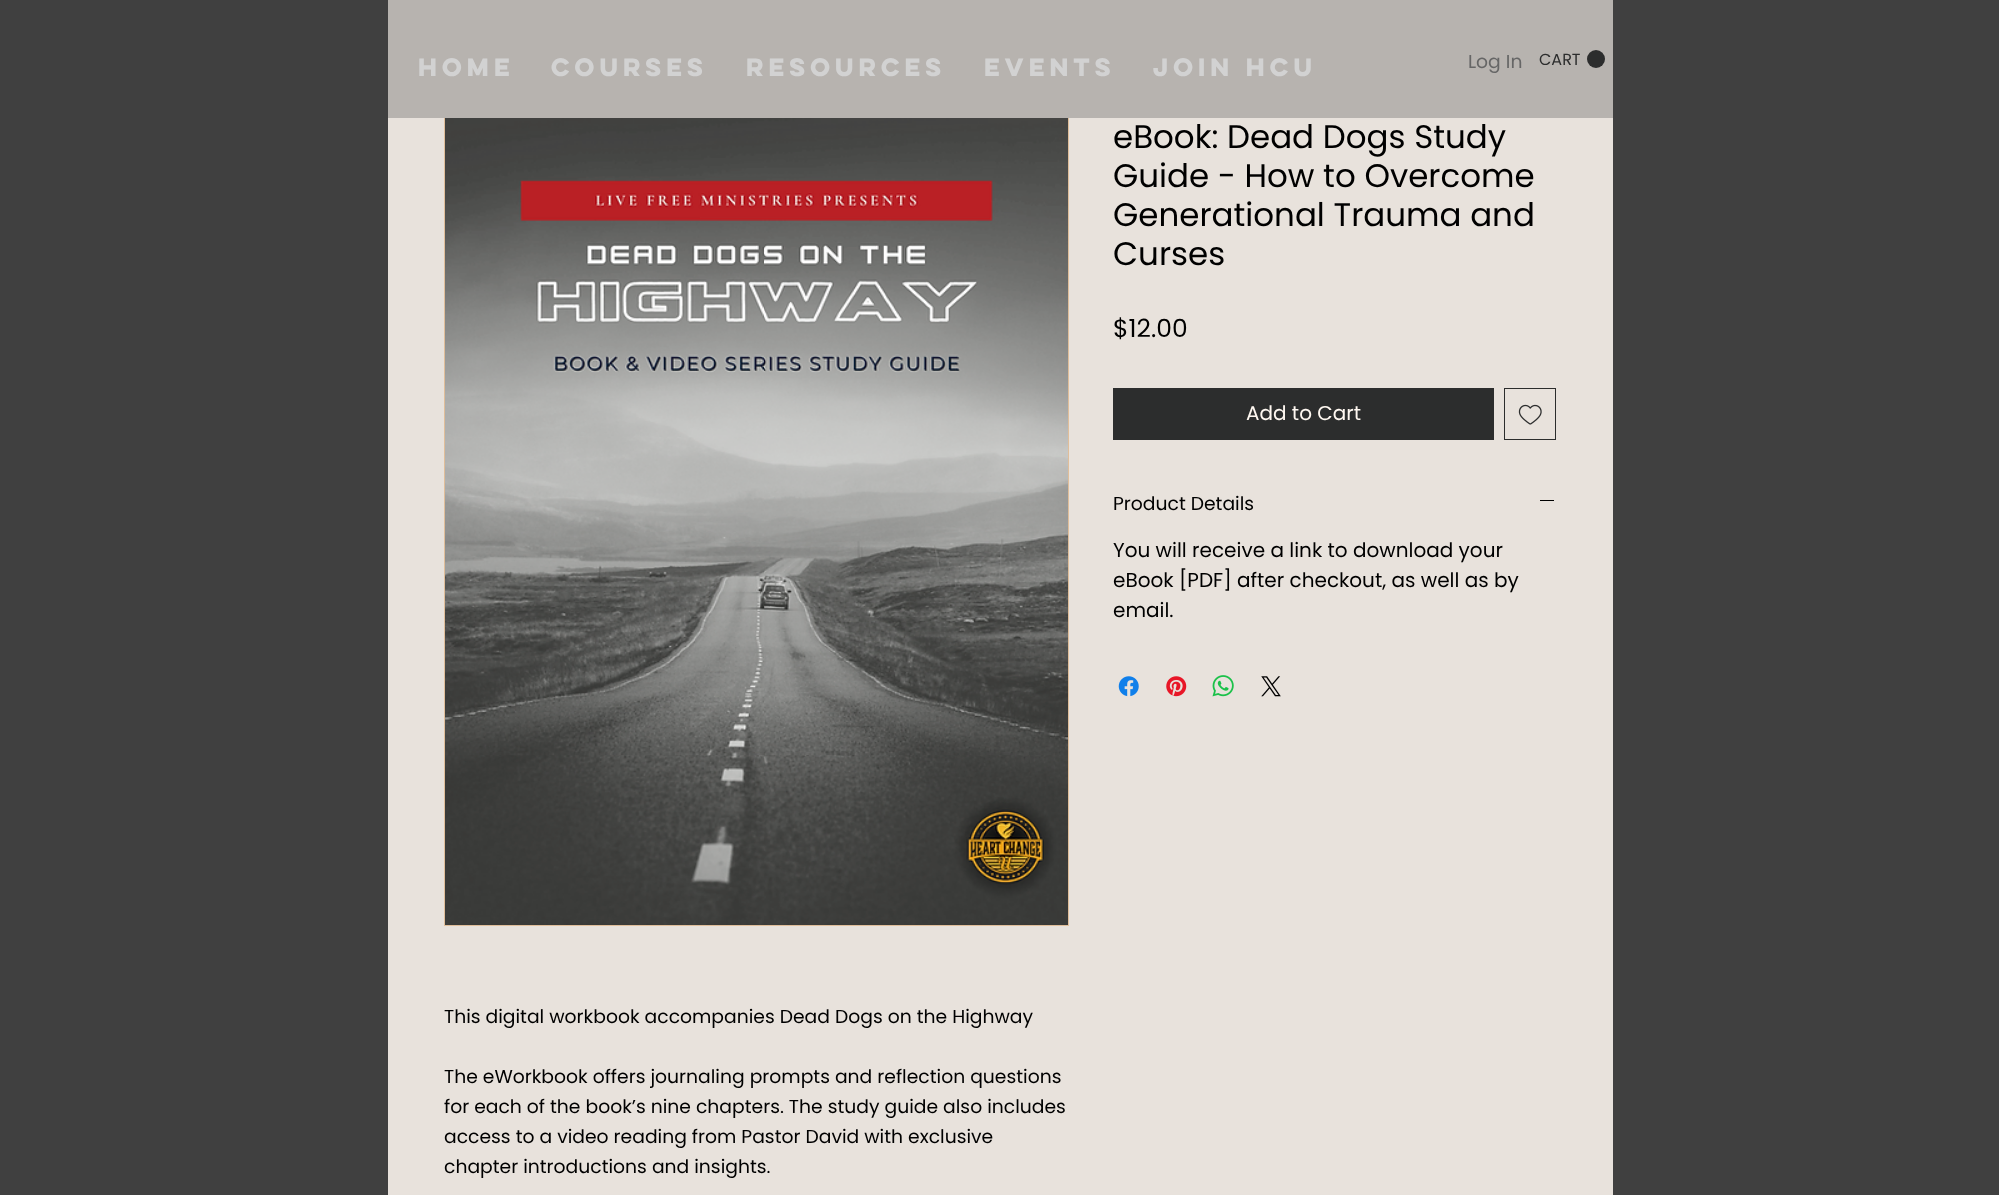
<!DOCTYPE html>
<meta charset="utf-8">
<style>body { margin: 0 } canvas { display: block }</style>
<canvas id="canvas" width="1999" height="1195"></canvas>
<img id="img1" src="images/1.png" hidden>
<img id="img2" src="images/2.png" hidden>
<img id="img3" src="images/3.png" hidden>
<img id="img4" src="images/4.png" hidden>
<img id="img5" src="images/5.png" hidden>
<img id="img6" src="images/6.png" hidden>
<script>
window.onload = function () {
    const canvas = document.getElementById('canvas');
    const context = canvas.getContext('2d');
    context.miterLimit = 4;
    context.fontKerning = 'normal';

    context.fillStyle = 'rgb(64, 64, 64)';
    context.fillRect(0, 0, 1999, 1195);
    context.fillStyle = 'rgb(183, 179, 175)';
    context.fillRect(388, 0, 1225, 118);
    context.fillStyle = 'rgb(44, 45, 45)';
    context.beginPath();
    context.arc(1596, 59, 9, 0, 2 * Math.PI);
    context.fill();
    context.fillStyle = 'rgb(232, 226, 220)';
    context.fillRect(388, 118, 1225, 1077);
    context.fillStyle = 'rgb(44, 45, 45)';
    context.fillRect(1113, 388, 381, 52);
    context.strokeStyle = 'rgb(44, 45, 45)';
    context.strokeRect(1504.5, 388.5, 51, 51);
    context.drawImage(document.getElementById('img1'), 1518, 404, 24, 21);
    context.fillStyle = 'rgb(0, 0, 0)';
    context.fillRect(1540, 500, 14, 1);
    context.drawImage(document.getElementById('img2'), 1118, 676, 21, 21);
    context.drawImage(document.getElementById('img3'), 1166, 676, 21, 21);
    context.drawImage(document.getElementById('img4'), 1212, 675, 22, 22);
    context.drawImage(document.getElementById('img5'), 1261, 676, 20, 21);
    context.strokeStyle = 'rgb(224, 190, 154)';
    context.strokeRect(444.5, 118.5, 624, 807);
    context.drawImage(document.getElementById('img6'), 445, 118, 623, 807);
    context.font = 'bold 22.5px "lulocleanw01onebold"';
    context.fillStyle = 'rgb(210, 210, 210)';
    context.fillText('Home', 418, 76);
    context.fillText('Courses', 551, 76);
    context.fillText('Resources', 746, 76);
    context.fillText('Events', 984, 76);
    context.fillText('Join HCU', 1153, 76);
    context.font = '18.75px Poppins';
    context.fillStyle = 'rgb(102, 102, 102)';
    context.fillText('Log In', 1468, 68);
    context.font = '16px Poppins';
    context.fillStyle = 'rgb(44, 45, 45)';
    context.fillText('CART', 1539, 65);
    context.font = '32.5px Poppins';
    context.fillStyle = 'rgb(0, 0, 0)';
    context.fillText('eBook: Dead Dogs Study', 1113, 148);
    context.fillText('Guide - How to Overcome', 1113, 187);
    context.fillText('Generational Trauma and', 1113, 226);
    context.fillText('Curses', 1113, 265);
    context.font = '25px Poppins';
    context.fillText('$12.00', 1113, 337);
    context.font = '20px Poppins';
    context.fillStyle = 'rgb(255, 248, 241)';
    context.fillText('Add to Cart', 1246, 420);
    context.font = '18.75px Poppins';
    context.fillStyle = 'rgb(0, 0, 0)';
    context.fillText('Product Details', 1113, 510);
    context.font = '20px Poppins';
    context.fillText('You will receive a link to download your', 1113, 557);
    context.fillText('eBook [PDF] after checkout, as well as by', 1113, 587);
    context.fillText('email.', 1113, 617);
    context.font = '18.75px Poppins';
    context.fillText('This digital workbook accompanies Dead Dogs on the Highway', 444, 1023);
    context.fillText('The eWorkbook offers journaling prompts and reflection questions', 444, 1083);
    context.fillText('for each of the book’s nine chapters. The study guide also includes', 444, 1113);
    context.fillText('access to a video reading from Pastor David with exclusive', 444, 1143);
    context.fillText('chapter introductions and insights.', 444, 1173);
};
</script>
